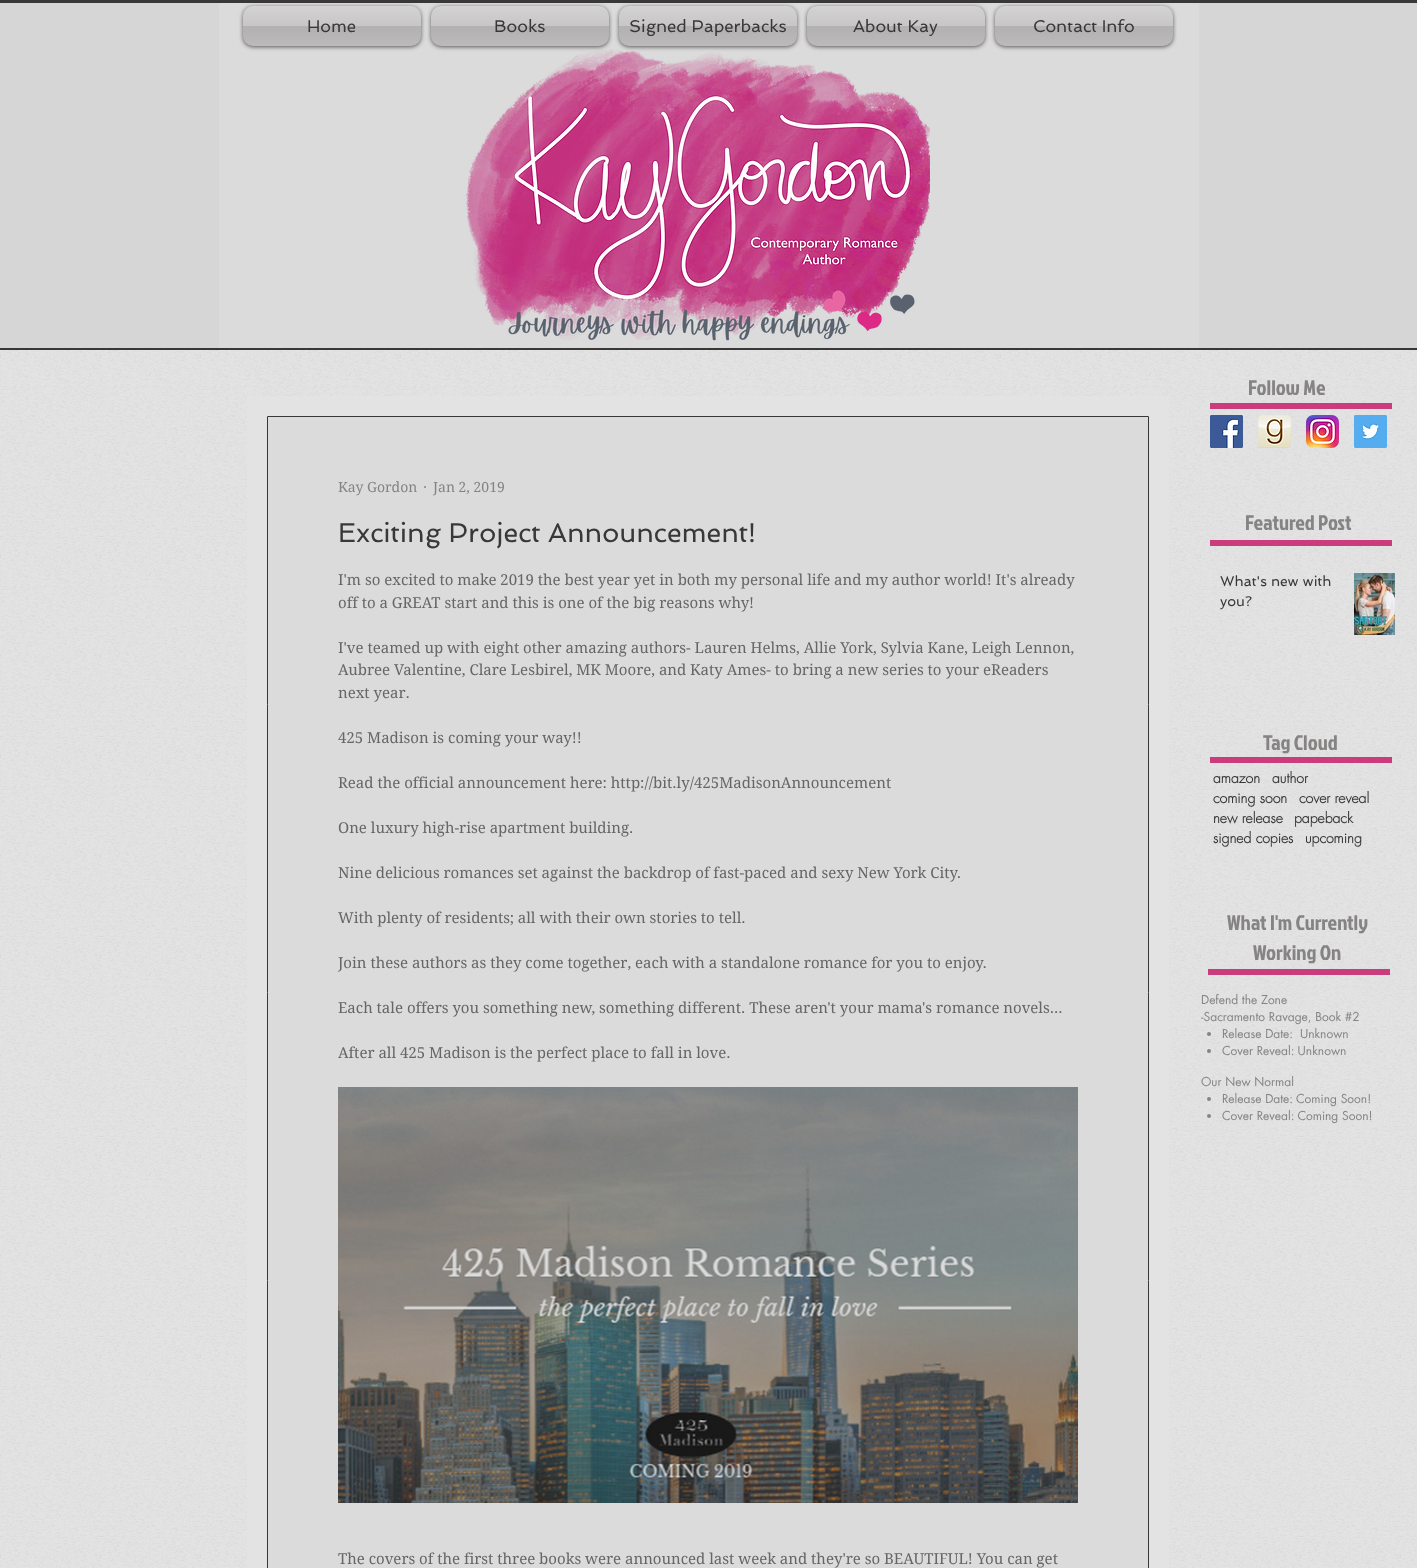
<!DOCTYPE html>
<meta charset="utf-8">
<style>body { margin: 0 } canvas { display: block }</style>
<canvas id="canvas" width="1417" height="1568"></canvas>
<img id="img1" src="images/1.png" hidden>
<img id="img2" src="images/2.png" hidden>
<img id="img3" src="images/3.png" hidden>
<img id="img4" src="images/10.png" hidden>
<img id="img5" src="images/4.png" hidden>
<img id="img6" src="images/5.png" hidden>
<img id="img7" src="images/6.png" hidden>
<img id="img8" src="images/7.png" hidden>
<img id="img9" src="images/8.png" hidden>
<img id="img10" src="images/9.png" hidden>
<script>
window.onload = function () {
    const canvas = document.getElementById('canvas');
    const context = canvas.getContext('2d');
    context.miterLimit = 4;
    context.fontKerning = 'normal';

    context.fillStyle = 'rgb(227, 227, 227)';
    context.fillRect(0, 0, 1417, 1568);
    context.fillStyle = 'rgb(214, 214, 214)';
    context.fillRect(0, 3, 1417, 345);
    context.fillStyle = 'rgb(57, 56, 56)';
    context.fillRect(0, 0, 1417, 3);
    context.fillRect(0, 348, 1417, 2);
    context.fillStyle = 'rgb(219, 219, 219)';
    context.fillRect(219, 3, 980, 345);
    context.fillStyle = 'rgba(0, 0, 0, 0.6)';
    context.filter = 'blur(2px)';
    context.beginPath();
    context.roundRect(243, 7, 178, 40, 10);
    context.fill();
    context.filter = 'none';
    context.fillStyle = 'rgb(193, 191, 191)';
    context.beginPath();
    context.roundRect(243, 6, 178, 40, 10);
    context.fill();
    context.drawImage(document.getElementById('img1'), 243, 6, 178, 40);
    context.fillStyle = 'rgba(0, 0, 0, 0.6)';
    context.filter = 'blur(2px)';
    context.beginPath();
    context.roundRect(431, 7, 178, 40, 10);
    context.fill();
    context.filter = 'none';
    context.fillStyle = 'rgb(193, 191, 191)';
    context.beginPath();
    context.roundRect(431, 6, 178, 40, 10);
    context.fill();
    context.drawImage(document.getElementById('img2'), 431, 6, 178, 40);
    context.fillStyle = 'rgba(0, 0, 0, 0.6)';
    context.filter = 'blur(2px)';
    context.beginPath();
    context.roundRect(619, 7, 178, 40, 10);
    context.fill();
    context.filter = 'none';
    context.fillStyle = 'rgb(193, 191, 191)';
    context.beginPath();
    context.roundRect(619, 6, 178, 40, 10);
    context.fill();
    context.drawImage(document.getElementById('img1'), 619, 6, 178, 40);
    context.fillStyle = 'rgba(0, 0, 0, 0.6)';
    context.filter = 'blur(2px)';
    context.beginPath();
    context.roundRect(807, 7, 178, 40, 10);
    context.fill();
    context.filter = 'none';
    context.fillStyle = 'rgb(193, 191, 191)';
    context.beginPath();
    context.roundRect(807, 6, 178, 40, 10);
    context.fill();
    context.drawImage(document.getElementById('img1'), 807, 6, 178, 40);
    context.fillStyle = 'rgba(0, 0, 0, 0.6)';
    context.filter = 'blur(2px)';
    context.beginPath();
    context.roundRect(995, 7, 178, 40, 10);
    context.fill();
    context.filter = 'none';
    context.fillStyle = 'rgb(193, 191, 191)';
    context.beginPath();
    context.roundRect(995, 6, 178, 40, 10);
    context.fill();
    context.drawImage(document.getElementById('img2'), 995, 6, 178, 40);
    context.drawImage(document.getElementById('img3'), 465, 49, 465, 292);
    context.drawImage(document.getElementById('img4'), 0, 350, 1417, 1218);
    context.fillStyle = 'rgb(227, 227, 227)';
    context.fillRect(247, 396, 922, 1172);
    context.fillStyle = 'rgb(219, 219, 219)';
    context.beginPath();
    context.rect(267.5, 416.5, 881, 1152);
    context.fill();
    context.strokeStyle = 'rgb(57, 56, 56)';
    context.stroke();
    context.drawImage(document.getElementById('img5'), 338, 1087, 740, 416);
    context.fillStyle = 'rgb(201, 61, 125)';
    context.fillRect(1210, 403, 182, 6);
    context.drawImage(document.getElementById('img6'), 1210, 415, 33, 33);
    context.drawImage(document.getElementById('img7'), 1258, 415, 33, 33);
    context.drawImage(document.getElementById('img8'), 1306, 415, 33, 33);
    context.drawImage(document.getElementById('img9'), 1354, 415, 33, 33);
    context.fillRect(1210, 540, 182, 6);
    context.drawImage(document.getElementById('img10'), 1354, 573, 41, 62);
    context.fillRect(1210, 757, 182, 6);
    context.fillRect(1208, 969, 182, 6);
    context.fillStyle = 'rgb(134, 131, 131)';
    context.beginPath();
    context.arc(1209, 1034, 2, 0, 2 * Math.PI);
    context.fill();
    context.beginPath();
    context.arc(1209, 1051, 2, 0, 2 * Math.PI);
    context.fill();
    context.beginPath();
    context.arc(1209, 1099, 2, 0, 2 * Math.PI);
    context.fill();
    context.beginPath();
    context.arc(1209, 1116, 2, 0, 2 * Math.PI);
    context.fill();
    context.font = '17px Spinnaker';
    context.fillStyle = 'rgb(57, 56, 56)';
    context.fillText('Home', 307, 32);
    context.fillText('Books', 494, 32);
    context.fillText('Signed Paperbacks', 629, 32);
    context.fillText('About Kay', 853, 32);
    context.fillText('Contact Info', 1033, 32);
    context.font = '14px "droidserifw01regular"';
    context.fillStyle = 'rgb(134, 131, 131)';
    context.fillText('Kay Gordon', 338, 492);
    context.fillText('·', 423, 492);
    context.fillText('Jan 2, 2019', 433, 492);
    context.font = '27px Spinnaker';
    context.fillStyle = 'rgb(57, 56, 56)';
    context.fillText('Exciting Project Announcement!', 338, 542);
    context.font = '15px "droidserifw01regular"';
    context.fillStyle = 'rgb(102, 102, 102)';
    context.fillText('I\'m so excited to make 2019 the best year yet in both my personal life and my author world! It\'s already', 338, 585);
    context.fillText('off to a GREAT start and this is one of the big reasons why!', 338, 608);
    context.fillText('I\'ve teamed up with eight other amazing authors- Lauren Helms, Allie York, Sylvia Kane, Leigh Lennon,', 338, 653);
    context.fillText('Aubree Valentine, Clare Lesbirel, MK Moore, and Katy Ames- to bring a new series to your eReaders', 338, 675);
    context.fillText('next year.', 338, 698);
    context.fillText('425 Madison is coming your way!!', 338, 743);
    context.fillText('Read the official announcement here: http://bit.ly/425MadisonAnnouncement', 338, 788);
    context.fillText('One luxury high-rise apartment building.', 338, 833);
    context.fillText('Nine delicious romances set against the backdrop of fast-paced and sexy New York City.', 338, 878);
    context.fillText('With plenty of residents; all with their own stories to tell.', 338, 923);
    context.fillText('Join these authors as they come together, each with a standalone romance for you to enjoy.', 338, 968);
    context.fillText('Each tale offers you something new, something different. These aren\'t your mama\'s romance novels...', 338, 1013);
    context.fillText('After all 425 Madison is the perfect place to fall in love.', 338, 1058);
    context.fillText('The covers of the first three books were announced last week and they\'re so BEAUTIFUL! You can get', 338, 1564);
    context.font = '21px Jockey One';
    context.fillStyle = 'rgb(134, 131, 131)';
    context.fillText('Follow Me', 1248, 395);
    context.fillText('Featured Post', 1245, 530);
    context.font = '14px Spinnaker';
    context.fillStyle = 'rgb(57, 56, 56)';
    context.fillText('What\'s new with', 1220, 586);
    context.fillText('you?', 1220, 606);
    context.font = '21px Jockey One';
    context.fillStyle = 'rgb(134, 131, 131)';
    context.fillText('Tag Cloud', 1263, 750);
    context.font = 'bold 14px futura';
    context.fillStyle = 'rgb(57, 56, 56)';
    context.fillText('amazon', 1213, 783);
    context.fillText('author', 1272, 783);
    context.fillText('coming soon', 1213, 803);
    context.fillText('cover reveal', 1299, 803);
    context.fillText('new release', 1213, 823);
    context.fillText('papeback', 1294, 823);
    context.fillText('signed copies', 1213, 843);
    context.fillText('upcoming', 1305, 843);
    context.font = '21px Jockey One';
    context.fillStyle = 'rgb(134, 131, 131)';
    context.fillText('What I\'m Currently', 1227, 930);
    context.fillText('Working On', 1253, 960);
    context.font = '12px futura';
    context.fillText('Defend the Zone', 1201, 1004);
    context.fillText('-Sacramento Ravage, Book #2', 1201, 1021);
    context.fillText('Release Date:  Unknown', 1222, 1038);
    context.fillText('Cover Reveal: Unknown', 1222, 1055);
    context.fillText('Our New Normal', 1201, 1086);
    context.fillText('Release Date: Coming Soon!', 1222, 1103);
    context.fillText('Cover Reveal: Coming Soon!', 1222, 1120);
};
</script>
